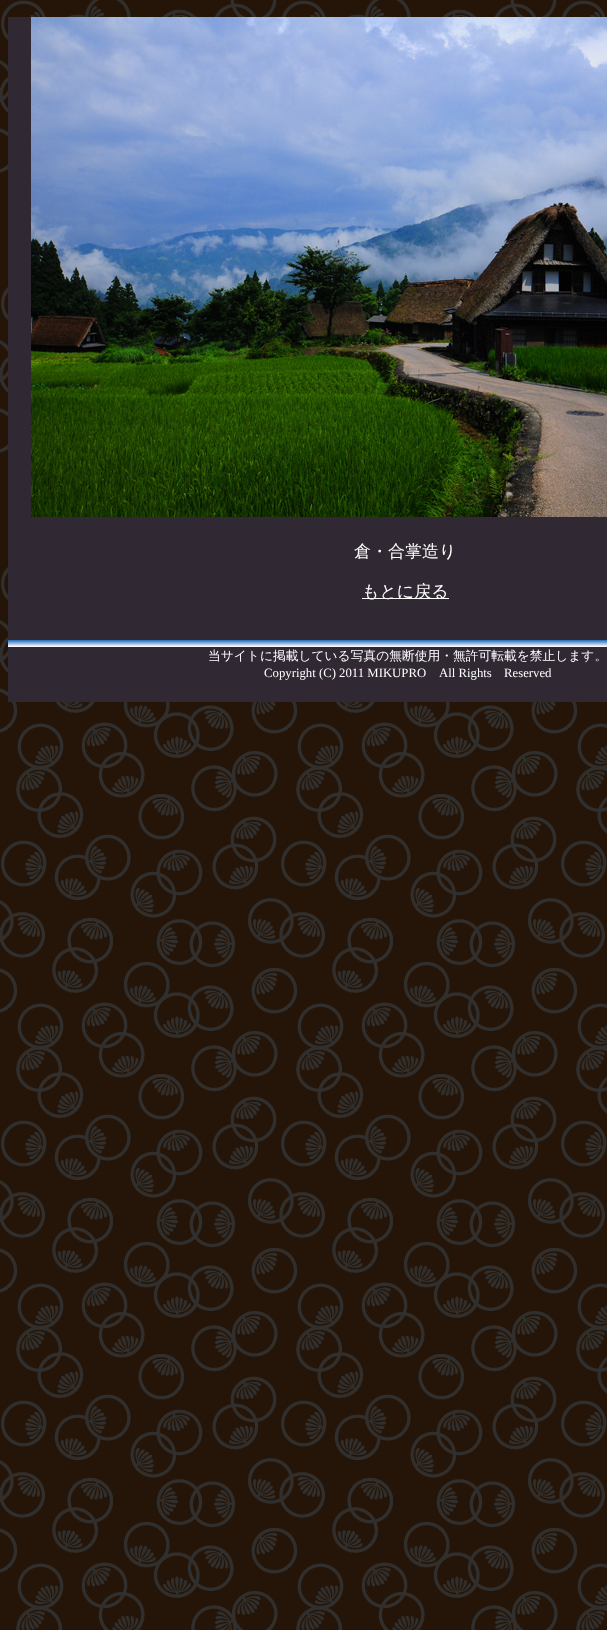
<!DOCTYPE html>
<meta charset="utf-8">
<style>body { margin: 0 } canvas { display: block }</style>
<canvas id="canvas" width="607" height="1630"></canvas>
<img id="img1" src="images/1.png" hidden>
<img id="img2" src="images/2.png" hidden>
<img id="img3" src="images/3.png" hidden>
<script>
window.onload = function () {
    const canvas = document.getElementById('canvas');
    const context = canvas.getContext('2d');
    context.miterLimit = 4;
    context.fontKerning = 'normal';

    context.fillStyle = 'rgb(255, 255, 255)';
    context.fillRect(0, 0, 607, 1630);
    context.drawImage(document.getElementById('img1'), 0, 0, 607, 1630);
    context.fillStyle = 'rgb(48, 40, 51)';
    context.fillRect(8, 17, 599, 685);
    context.drawImage(document.getElementById('img2'), 31, 17, 576, 500);
    context.fillStyle = 'rgb(255, 255, 255)';
    context.fillRect(362, 598, 87, 1);
    context.drawImage(document.getElementById('img3'), 8, 640, 599, 7);
    context.font = '500 17px WenQuanYi Zen Hei';
    context.fillText('倉・合掌造り', 354, 557);
    context.fillText('もとに戻る', 362, 597);
    context.font = '500 12.75px WenQuanYi Zen Hei';
    context.fillText('当サイトに掲載している写真の無断使用・無許可転載を禁止します。', 208, 660);
    context.font = '12.75px Liberation Serif';
    context.fillText('Copyright (C) 2011 MIKUPRO', 264, 677);
    context.fillText('All Rights', 439, 677);
    context.fillText('Reserved', 504, 677);
};
</script>
